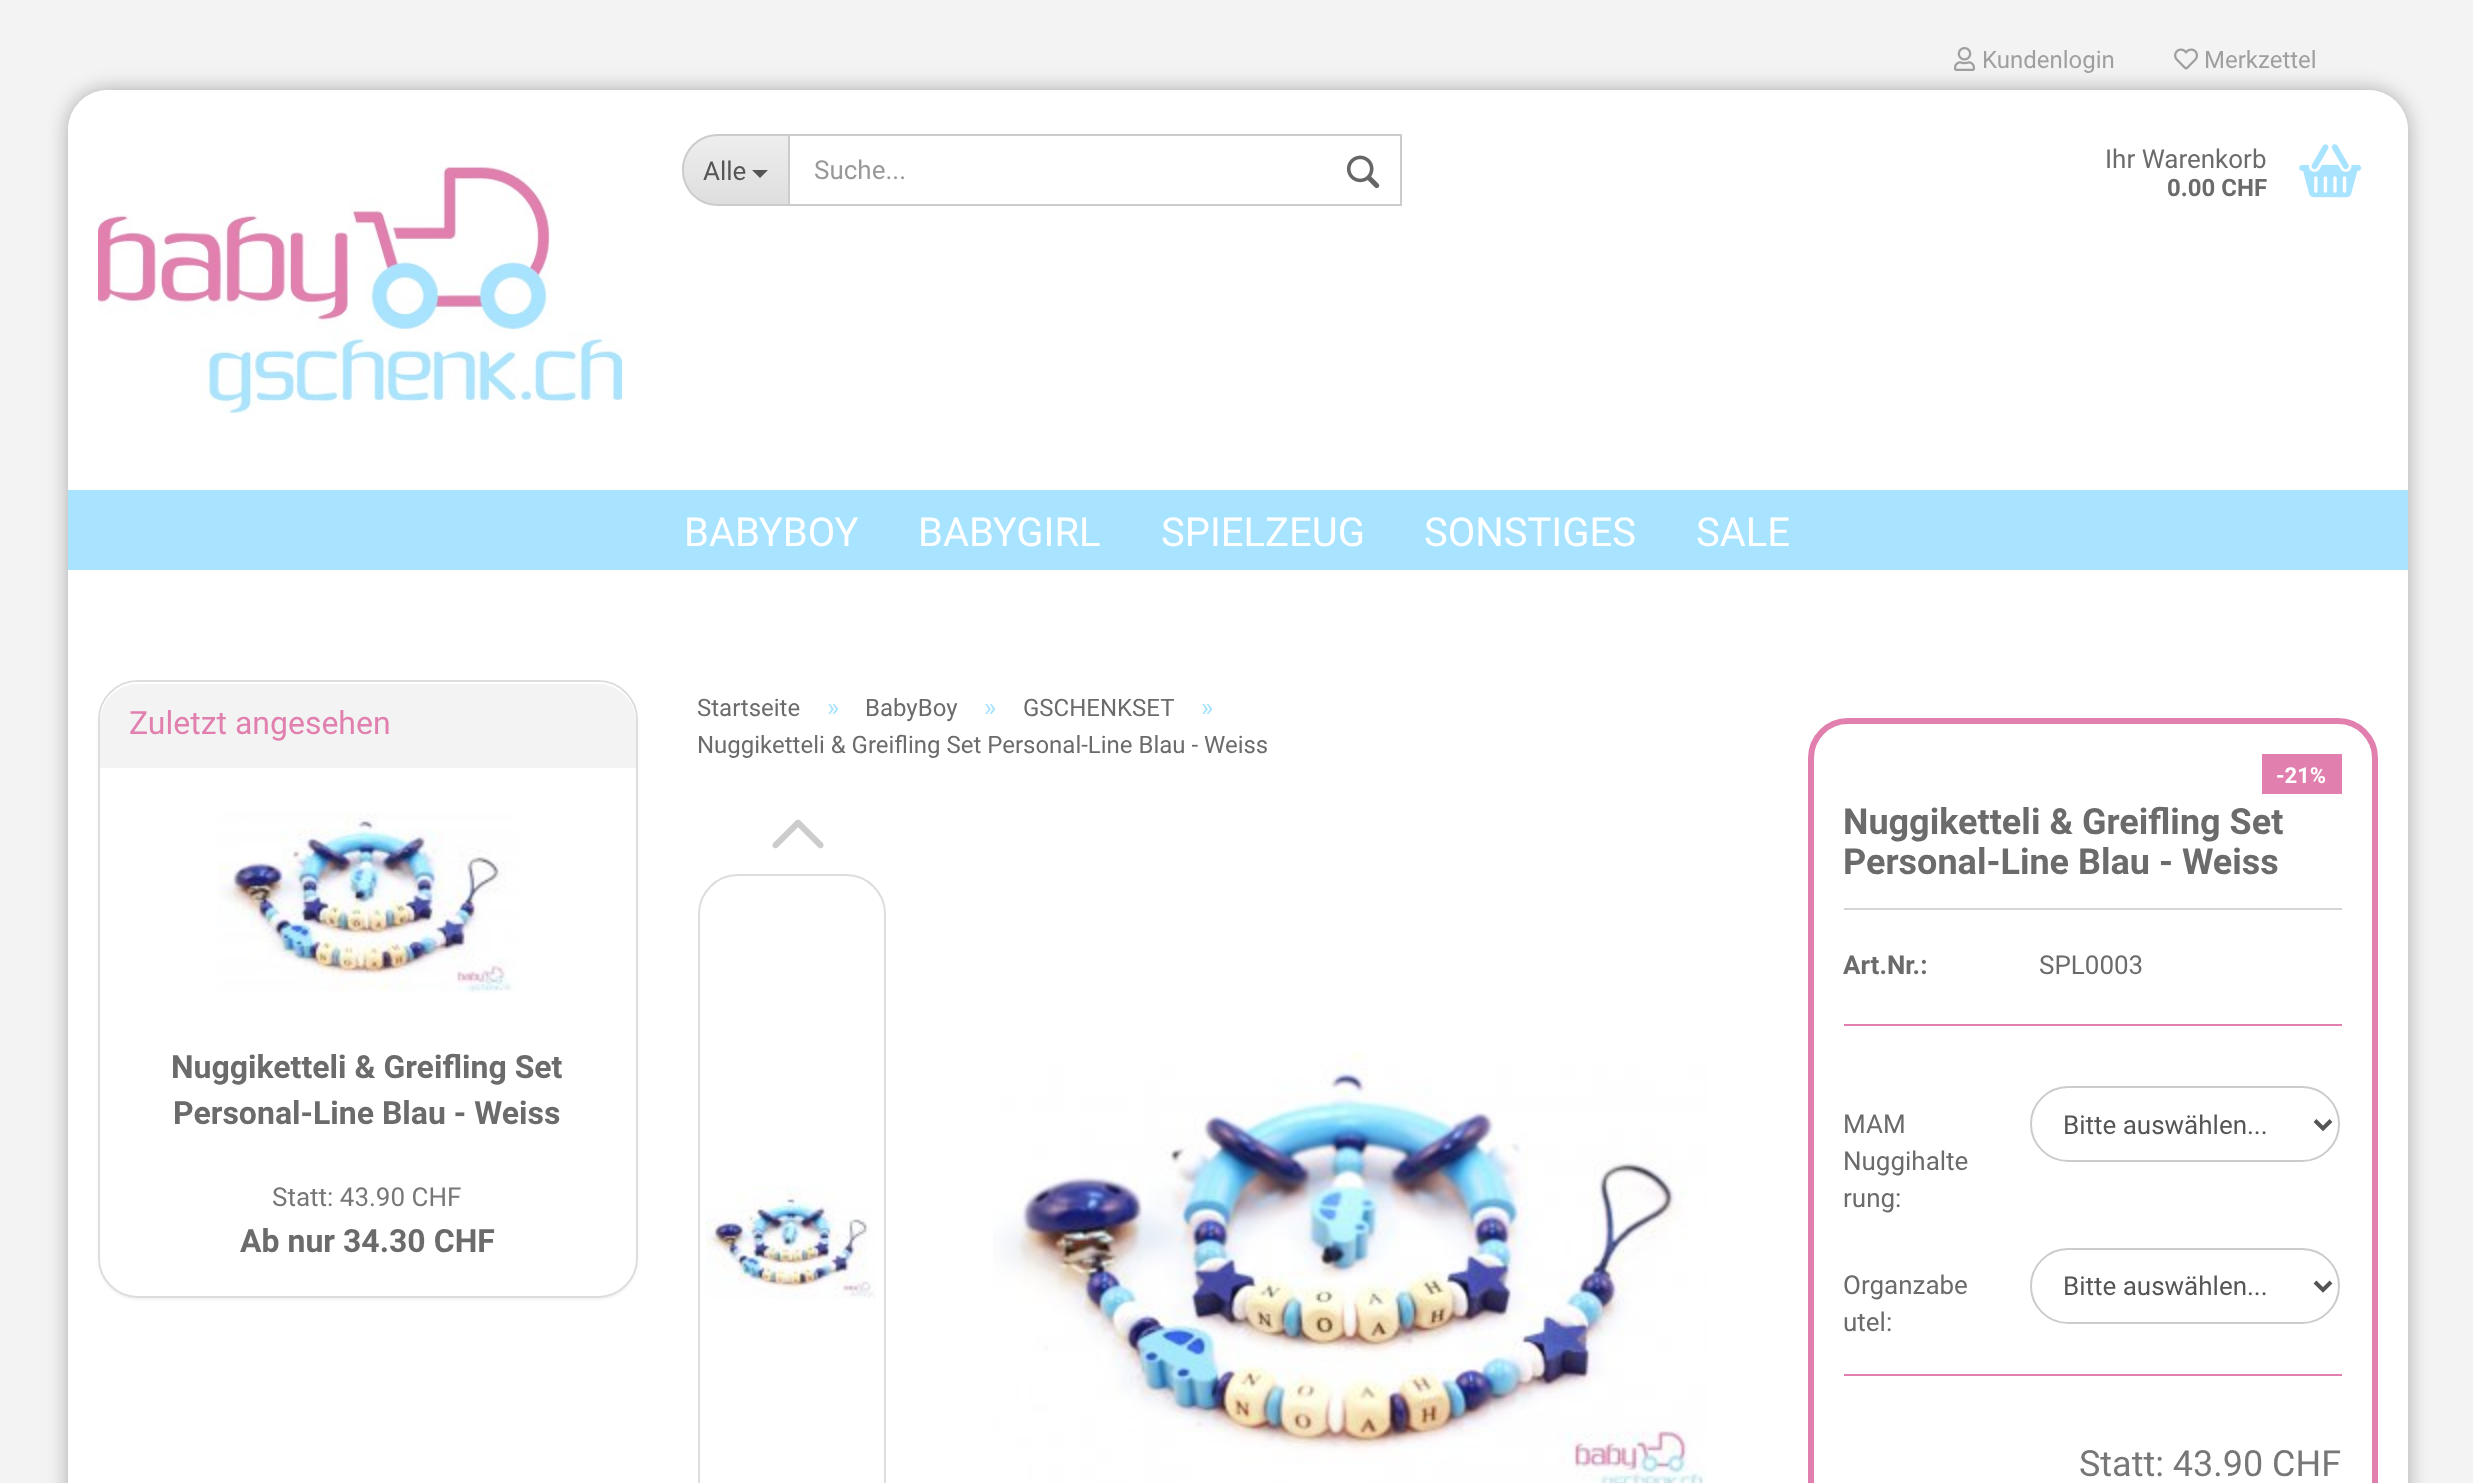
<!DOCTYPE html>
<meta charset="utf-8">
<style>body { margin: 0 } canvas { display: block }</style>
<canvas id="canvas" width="2473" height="1483"></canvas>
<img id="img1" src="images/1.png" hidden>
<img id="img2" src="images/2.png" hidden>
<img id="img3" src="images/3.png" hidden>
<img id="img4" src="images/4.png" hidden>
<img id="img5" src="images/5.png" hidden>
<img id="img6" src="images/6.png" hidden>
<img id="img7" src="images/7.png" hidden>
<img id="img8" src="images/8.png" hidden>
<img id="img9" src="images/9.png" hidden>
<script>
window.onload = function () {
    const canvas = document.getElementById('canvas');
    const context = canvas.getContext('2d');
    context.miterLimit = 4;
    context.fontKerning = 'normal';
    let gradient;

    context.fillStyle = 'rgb(243, 243, 243)';
    context.fillRect(0, 0, 2473, 1483);
    context.fillStyle = 'rgba(0, 0, 0, 0.3)';
    context.filter = 'blur(10px)';
    context.beginPath();
    context.roundRect(68, 90, 2340, 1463, 40);
    context.fill();
    context.filter = 'none';
    context.fillStyle = 'rgb(255, 255, 255)';
    context.beginPath();
    context.roundRect(68, 90, 2340, 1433, 40);
    context.fill();
    context.beginPath();
    context.roundRect(68, 90, 2340, 560, 40);
    context.fill();
    context.drawImage(document.getElementById('img1'), 1954, 47, 21, 24);
    context.drawImage(document.getElementById('img2'), 2174, 48, 24, 22);
    context.drawImage(document.getElementById('img3'), 98, 166, 524, 248);
    context.save();
    context.beginPath();
    context.roundRect(682, 134, 106, 72, [36, 0, 0, 36]);
    context.clip();
    gradient = context.createLinearGradient(736, 136, 736, 204);
    gradient.addColorStop(0, 'rgb(238, 238, 238)');
    gradient.addColorStop(1, 'rgb(222, 222, 222)');
    context.fillStyle = gradient;
    context.fillRect(682, 136, 106, 68);
    context.restore();
    context.fillStyle = 'rgb(204, 204, 204)';
    context.beginPath();
    context.moveTo(718, 134);
    context.lineTo(788, 134);
    context.lineTo(788, 206);
    context.lineTo(718, 206);
    context.bezierCurveTo(698, 206, 682, 190, 682, 170);
    context.bezierCurveTo(682, 150, 698, 134, 718, 134);
    context.closePath();
    context.moveTo(718, 136);
    context.lineTo(788, 136);
    context.lineTo(788, 204);
    context.lineTo(718, 204);
    context.bezierCurveTo(699, 204, 684, 189, 684, 170);
    context.bezierCurveTo(684, 151, 699, 136, 718, 136);
    context.closePath();
    context.fill('evenodd');
    context.fillStyle = 'rgb(85, 85, 85)';
    context.beginPath();
    context.moveTo(752, 170);
    context.lineTo(768, 170);
    context.lineTo(760, 178);
    context.closePath();
    context.fill();
    context.strokeStyle = 'rgb(204, 204, 204)';
    context.lineWidth = 2;
    context.strokeRect(789, 135, 612, 70);
    context.drawImage(document.getElementById('img4'), 1346, 155, 34, 34);
    context.drawImage(document.getElementById('img5'), 2299, 144, 63, 54);
    context.fillStyle = 'rgb(168, 227, 255)';
    context.fillRect(68, 490, 2340, 80);
    context.fillStyle = 'rgba(0, 0, 0, 0.05)';
    context.filter = 'blur(1px)';
    context.beginPath();
    context.roundRect(98, 682, 540, 618, 40);
    context.fill();
    context.filter = 'none';
    context.fillStyle = 'rgb(255, 255, 255)';
    context.beginPath();
    context.roundRect(99, 681, 538, 616, 39);
    context.fill();
    context.strokeStyle = 'rgb(221, 221, 221)';
    context.stroke();
    context.fillStyle = 'rgb(243, 243, 243)';
    context.beginPath();
    context.roundRect(100, 682, 536, 86, [38, 38, 0, 0]);
    context.fill();
    context.fillStyle = 'rgb(255, 255, 255)';
    context.beginPath();
    context.moveTo(138, 684);
    context.lineTo(598, 684);
    context.bezierCurveTo(619, 684, 636, 701, 636, 722);
    context.lineTo(636, 720);
    context.bezierCurveTo(636, 699, 619, 682, 598, 682);
    context.lineTo(138, 682);
    context.bezierCurveTo(117, 682, 100, 699, 100, 720);
    context.lineTo(100, 722);
    context.bezierCurveTo(100, 701, 117, 684, 138, 684);
    context.closePath();
    context.fill();
    context.beginPath();
    context.roundRect(100, 768, 536, 528, [0, 0, 40, 40]);
    context.fill();
    context.drawImage(document.getElementById('img6'), 218, 811, 300, 182);
    context.drawImage(document.getElementById('img7'), 772, 819, 52, 30);
    context.beginPath();
    context.roundRect(699, 875, 186, 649, 39);
    context.stroke();
    context.drawImage(document.getElementById('img8'), 706, 1186, 170, 113);
    context.drawImage(document.getElementById('img9'), 993, 1052, 714, 431);
    context.beginPath();
    context.roundRect(1811, 721, 564, 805, 37);
    context.strokeStyle = 'rgb(225, 127, 174)';
    context.lineWidth = 6;
    context.stroke();
    context.fillStyle = 'rgb(225, 127, 174)';
    context.fillRect(2262, 754, 80, 40);
    context.fillStyle = 'rgb(213, 213, 213)';
    context.fillRect(1844, 908, 498, 2);
    context.fillStyle = 'rgb(225, 127, 174)';
    context.fillRect(1844, 1024, 498, 2);
    context.fillRect(1844, 1374, 498, 2);
    context.beginPath();
    context.roundRect(2031, 1087, 308, 74, 37);
    context.strokeStyle = 'rgb(204, 204, 204)';
    context.lineWidth = 2;
    context.stroke();
    context.beginPath();
    context.moveTo(2315, 1120.5);
    context.lineTo(2323, 1128.5);
    context.lineTo(2331, 1120.5);
    context.strokeStyle = 'rgb(85, 85, 85)';
    context.lineWidth = 4;
    context.stroke();
    context.beginPath();
    context.roundRect(2031, 1249, 308, 74, 37);
    context.strokeStyle = 'rgb(204, 204, 204)';
    context.lineWidth = 2;
    context.stroke();
    context.beginPath();
    context.moveTo(2315, 1282);
    context.lineTo(2323, 1290);
    context.lineTo(2331, 1282);
    context.strokeStyle = 'rgb(85, 85, 85)';
    context.lineWidth = 4;
    context.stroke();
    context.font = '24px Roboto';
    context.fillStyle = 'rgb(159, 159, 159)';
    context.fillText('Kundenlogin', 1982, 68);
    context.fillText('Merkzettel', 2204, 68);
    context.font = '26px Roboto';
    context.fillStyle = 'rgb(85, 85, 85)';
    context.fillText('Alle', 703, 180);
    context.fillStyle = 'rgb(153, 153, 153)';
    context.fillText('Suche...', 814, 179);
    context.fillStyle = 'rgb(107, 107, 107)';
    context.fillText('Ihr Warenkorb', 2105, 168);
    context.font = 'bold 24px Roboto';
    context.fillText('0.00 CHF', 2167, 196);
    context.font = '40px Roboto';
    context.fillStyle = 'rgb(255, 255, 255)';
    context.fillText('BABYBOY', 684, 546);
    context.fillText('BABYGIRL', 918, 546);
    context.fillText('SPIELZEUG', 1161, 546);
    context.fillText('SONSTIGES', 1424, 546);
    context.fillText('SALE', 1696, 546);
    context.font = '32px Roboto';
    context.fillStyle = 'rgb(225, 127, 174)';
    context.fillText('Zuletzt angesehen', 129, 734);
    context.font = 'bold 32px Roboto';
    context.fillStyle = 'rgb(107, 107, 107)';
    context.fillText('Nuggiketteli & Greifling Set', 171, 1078);
    context.fillText('Personal-Line Blau - Weiss', 173, 1124);
    context.font = '26px Roboto';
    context.fillStyle = 'rgb(119, 119, 119)';
    context.fillText('Statt: 43.90 CHF', 272, 1206);
    context.font = 'bold 32px Roboto';
    context.fillStyle = 'rgb(107, 107, 107)';
    context.fillText('Ab nur 34.30 CHF', 240, 1252);
    context.font = '24px Roboto';
    context.fillText('Startseite', 697, 716);
    context.font = '26px Roboto';
    context.fillStyle = 'rgb(168, 227, 255)';
    context.fillText('»', 827, 716);
    context.font = '24px Roboto';
    context.fillStyle = 'rgb(107, 107, 107)';
    context.fillText('BabyBoy', 865, 716);
    context.font = '26px Roboto';
    context.fillStyle = 'rgb(168, 227, 255)';
    context.fillText('»', 984, 716);
    context.font = '24px Roboto';
    context.fillStyle = 'rgb(107, 107, 107)';
    context.fillText('GSCHENKSET', 1023, 716);
    context.font = '26px Roboto';
    context.fillStyle = 'rgb(168, 227, 255)';
    context.fillText('»', 1201, 716);
    context.font = '24px Roboto';
    context.fillStyle = 'rgb(107, 107, 107)';
    context.fillText('Nuggiketteli & Greifling Set Personal-Line Blau - Weiss', 697, 753);
    context.font = 'bold 22px Roboto';
    context.fillStyle = 'rgb(255, 255, 255)';
    context.fillText('-21%', 2276, 783);
    context.font = 'bold 36px Roboto';
    context.fillStyle = 'rgb(107, 107, 107)';
    context.fillText('Nuggiketteli & Greifling Set', 1843, 834);
    context.fillText('Personal-Line Blau - Weiss', 1843, 874);
    context.font = 'bold 26px Roboto';
    context.fillText('Art.Nr.:', 1843, 974);
    context.font = '26px Roboto';
    context.fillText('SPL0003', 2039, 974);
    context.fillText('MAM', 1843, 1133);
    context.fillText('Nuggihalte', 1843, 1170);
    context.fillText('rung:', 1843, 1207);
    context.fillStyle = 'rgb(85, 85, 85)';
    context.fillText('Bitte auswählen...', 2063, 1134);
    context.fillStyle = 'rgb(107, 107, 107)';
    context.fillText('Organzabe', 1843, 1294);
    context.fillText('utel:', 1843, 1331);
    context.fillStyle = 'rgb(85, 85, 85)';
    context.fillText('Bitte auswählen...', 2063, 1295);
    context.font = '36px Roboto';
    context.fillStyle = 'rgb(119, 119, 119)';
    context.fillText('Statt: 43.90 CHF', 2079, 1476);
};
</script>
